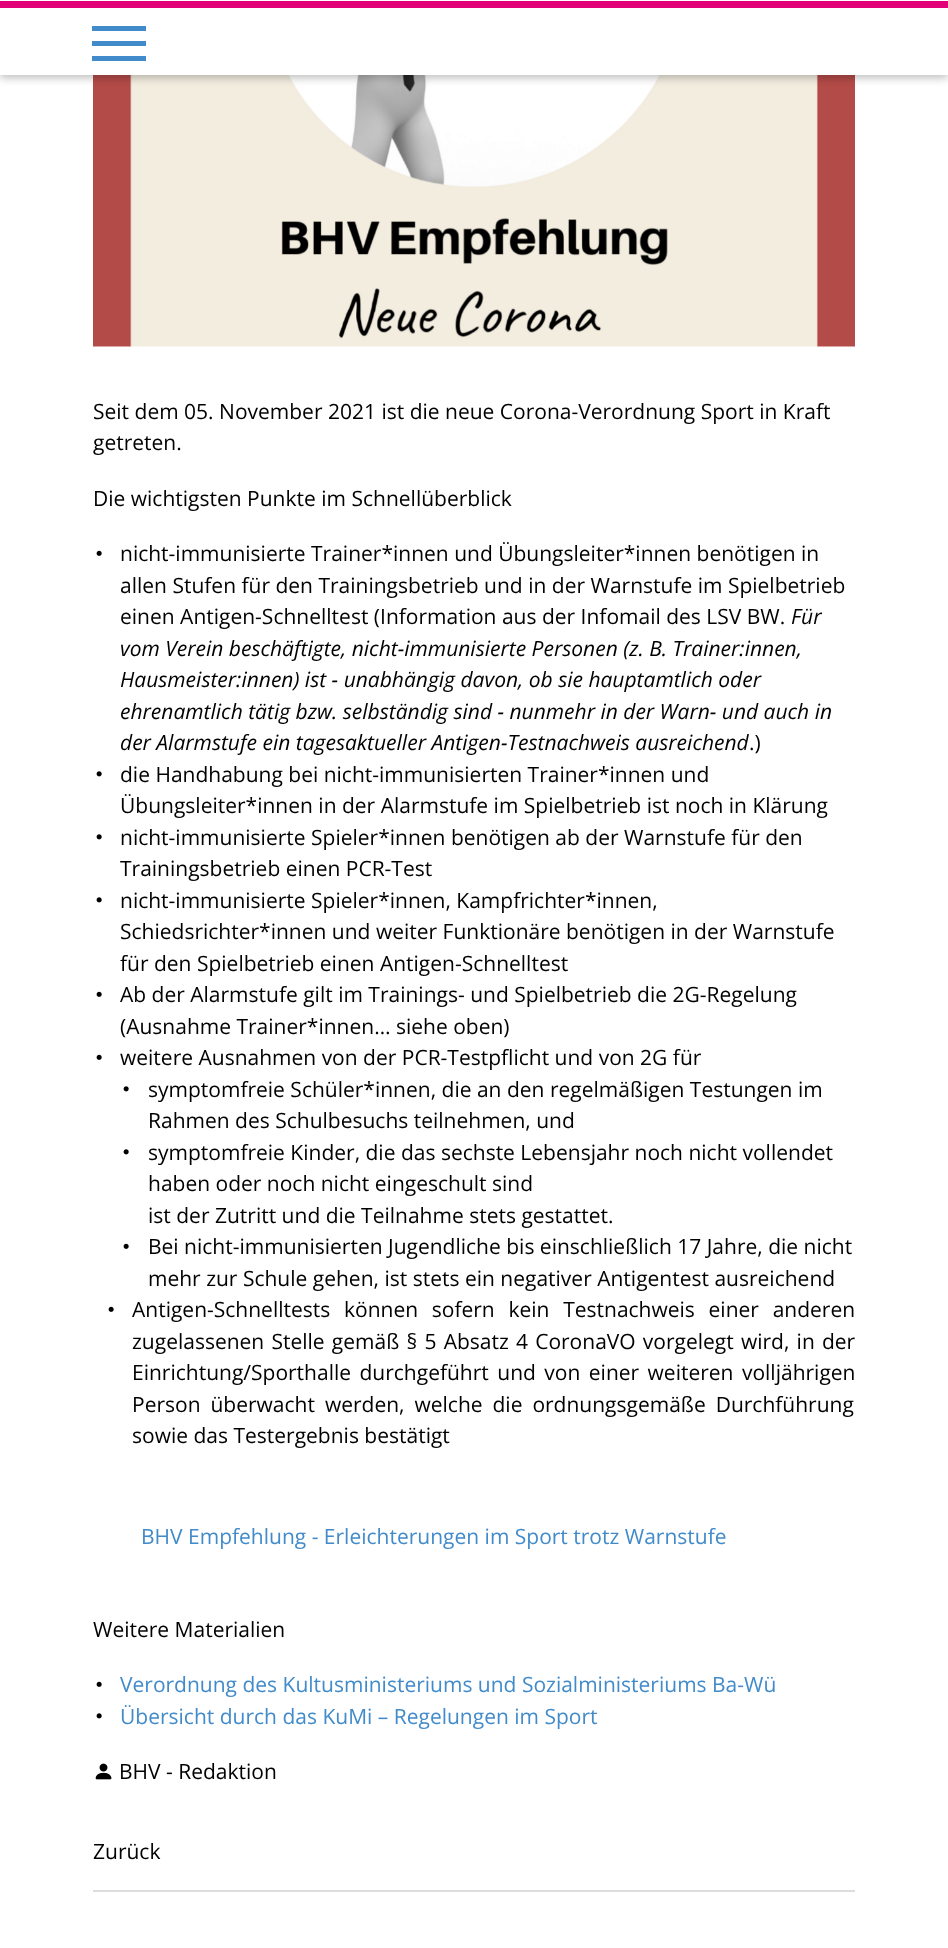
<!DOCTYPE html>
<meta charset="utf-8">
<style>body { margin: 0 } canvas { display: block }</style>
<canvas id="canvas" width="948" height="1948"></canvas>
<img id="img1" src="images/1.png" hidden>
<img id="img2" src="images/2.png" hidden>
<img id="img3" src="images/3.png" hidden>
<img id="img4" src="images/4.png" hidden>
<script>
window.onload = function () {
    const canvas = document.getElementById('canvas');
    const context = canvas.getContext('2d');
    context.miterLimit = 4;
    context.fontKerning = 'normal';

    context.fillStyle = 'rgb(255, 255, 255)';
    context.fillRect(0, 0, 948, 1948);
    context.drawImage(document.getElementById('img1'), 93, 75, 762, 272);
    context.fillStyle = 'rgba(0, 0, 0, 0.25)';
    context.filter = 'blur(4px)';
    context.beginPath();
    context.rect(0, 3, 948, 75);
    context.fill();
    context.filter = 'none';
    context.fillStyle = 'rgb(255, 255, 255)';
    context.fillRect(0, 8, 948, 67);
    context.fillStyle = 'rgb(225, 0, 117)';
    context.fillRect(0, 1, 948, 7);
    context.fillStyle = 'rgb(255, 255, 255)';
    context.fillRect(0, 0, 948, 1);
    context.fillStyle = 'rgb(66, 139, 202)';
    context.fillRect(92, 26, 54, 5);
    context.fillRect(92, 41, 54, 5);
    context.fillRect(92, 56, 54, 5);
    context.drawImage(document.getElementById('img2'), 96, 550, 6, 6);
    context.drawImage(document.getElementById('img3'), 96, 771, 6, 6);
    context.drawImage(document.getElementById('img3'), 96, 834, 6, 6);
    context.drawImage(document.getElementById('img3'), 96, 897, 6, 6);
    context.drawImage(document.getElementById('img2'), 96, 991, 6, 6);
    context.drawImage(document.getElementById('img2'), 96, 1054, 6, 6);
    context.drawImage(document.getElementById('img3'), 123, 1086, 6, 6);
    context.drawImage(document.getElementById('img3'), 123, 1149, 6, 6);
    context.drawImage(document.getElementById('img2'), 123, 1243, 6, 6);
    context.drawImage(document.getElementById('img2'), 108, 1306, 6, 6);
    context.drawImage(document.getElementById('img2'), 96, 1681, 6, 6);
    context.drawImage(document.getElementById('img3'), 96, 1713, 6, 6);
    context.drawImage(document.getElementById('img4'), 95, 1763, 17, 17);
    context.fillStyle = 'rgb(221, 221, 221)';
    context.fillRect(93, 1890, 762, 2);
    context.font = '21px Open Sans';
    context.fillStyle = 'rgb(0, 0, 0)';
    context.fillText('Seit dem 05. November 2021 ist die neue Corona-Verordnung Sport in Kraft', 93, 419);
    context.fillText('getreten.', 93, 450);
    context.fillText('Die wichtigsten Punkte im Schnellüberblick', 93, 506);
    context.fillText('nicht-immunisierte Trainer*innen und Übungsleiter*innen benötigen in', 120, 561);
    context.fillText('allen Stufen für den Trainingsbetrieb und in der Warnstufe im Spielbetrieb', 120, 593);
    context.fillText('einen Antigen-Schnelltest (Information aus der Infomail des LSV BW.', 120, 624);
    context.font = 'italic 21px Open Sans';
    context.fillText('Für', 791, 624);
    context.fillText('vom Verein beschäftigte, nicht-immunisierte Personen (z. B. Trainer:innen,', 120, 656);
    context.fillText('Hausmeister:innen) ist - unabhängig davon, ob sie hauptamtlich oder', 120, 687);
    context.fillText('ehrenamtlich tätig bzw. selbständig sind - nunmehr in der Warn- und auch in', 120, 719);
    context.fillText('der Alarmstufe ein tagesaktueller Antigen-Testnachweis ausreichend', 120, 750);
    context.font = '21px Open Sans';
    context.fillText('.)', 749, 750);
    context.fillText('die Handhabung bei nicht-immunisierten Trainer*innen und', 120, 782);
    context.fillText('Übungsleiter*innen in der Alarmstufe im Spielbetrieb ist noch in Klärung', 120, 813);
    context.fillText('nicht-immunisierte Spieler*innen benötigen ab der Warnstufe für den', 120, 845);
    context.fillText('Trainingsbetrieb einen PCR-Test', 120, 876);
    context.fillText('nicht-immunisierte Spieler*innen, Kampfrichter*innen,', 120, 908);
    context.fillText('Schiedsrichter*innen und weiter Funktionäre benötigen in der Warnstufe', 120, 939);
    context.fillText('für den Spielbetrieb einen Antigen-Schnelltest', 120, 971);
    context.fillText('Ab der Alarmstufe gilt im Trainings- und Spielbetrieb die 2G-Regelung', 120, 1002);
    context.fillText('(Ausnahme Trainer*innen… siehe oben)', 120, 1034);
    context.fillText('weitere Ausnahmen von der PCR-Testpflicht und von 2G für', 120, 1065);
    context.fillText('symptomfreie Schüler*innen, die an den regelmäßigen Testungen im', 148, 1097);
    context.fillText('Rahmen des Schulbesuchs teilnehmen, und', 148, 1128);
    context.fillText('symptomfreie Kinder, die das sechste Lebensjahr noch nicht vollendet', 148, 1160);
    context.fillText('haben oder noch nicht eingeschult sind', 148, 1191);
    context.fillText('ist der Zutritt und die Teilnahme stets gestattet.', 148, 1223);
    context.fillText('Bei nicht-immunisierten Jugendliche bis einschließlich 17 Jahre, die nicht', 148, 1254);
    context.fillText('mehr zur Schule gehen, ist stets ein negativer Antigentest ausreichend', 148, 1286);
    context.wordSpacing = '8.25px';
    context.fillText('Antigen-Schnelltests können sofern kein Testnachweis einer anderen', 132, 1317);
    context.wordSpacing = '1.75px';
    context.fillText('zugelassenen Stelle gemäß § 5 Absatz 4 CoronaVO vorgelegt wird, in der', 132, 1349);
    context.wordSpacing = '3px';
    context.fillText('Einrichtung/Sporthalle durchgeführt und von einer weiteren volljährigen', 132, 1380);
    context.wordSpacing = '4.5px';
    context.fillText('Person überwacht werden, welche die ordnungsgemäße Durchführung', 132, 1412);
    context.wordSpacing = '0px';
    context.fillText('sowie das Testergebnis bestätigt', 132, 1443);
    context.fillStyle = 'rgb(66, 139, 202)';
    context.fillText('BHV Empfehlung - Erleichterungen im Sport trotz Warnstufe', 141, 1544);
    context.fillStyle = 'rgb(0, 0, 0)';
    context.fillText('Weitere Materialien', 93, 1637);
    context.fillStyle = 'rgb(66, 139, 202)';
    context.fillText('Verordnung des Kultusministeriums und Sozialministeriums Ba-Wü', 120, 1692);
    context.fillText('Übersicht durch das KuMi – Regelungen im Sport', 120, 1724);
    context.fillStyle = 'rgb(0, 0, 0)';
    context.fillText('BHV - Redaktion', 119, 1779);
    context.fillText('Zurück', 93, 1859);
};
</script>
